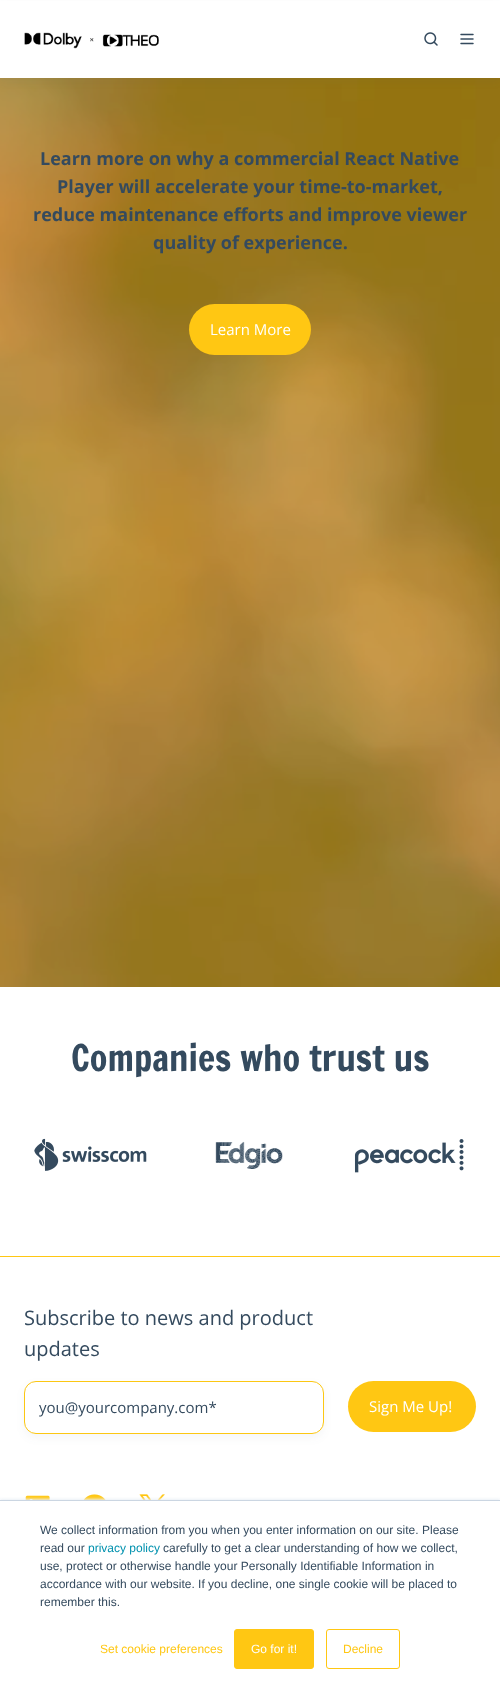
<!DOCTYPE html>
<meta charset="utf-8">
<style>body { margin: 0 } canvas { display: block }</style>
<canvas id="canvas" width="500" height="1695"></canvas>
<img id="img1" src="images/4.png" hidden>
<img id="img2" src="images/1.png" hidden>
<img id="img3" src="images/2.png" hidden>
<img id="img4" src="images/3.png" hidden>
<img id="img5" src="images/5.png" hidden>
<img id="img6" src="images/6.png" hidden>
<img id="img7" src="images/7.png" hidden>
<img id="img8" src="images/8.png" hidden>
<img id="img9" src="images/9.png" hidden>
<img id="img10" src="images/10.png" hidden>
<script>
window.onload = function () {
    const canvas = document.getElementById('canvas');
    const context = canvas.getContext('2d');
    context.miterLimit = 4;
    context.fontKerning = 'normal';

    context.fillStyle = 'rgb(255, 255, 255)';
    context.fillRect(0, 0, 500, 1695);
    context.drawImage(document.getElementById('img1'), 0, 78, 500, 909);
    context.fillStyle = 'rgba(52, 74, 94, 0.05)';
    context.filter = 'blur(4px)';
    context.beginPath();
    context.rect(0, 4, 500, 78);
    context.fill();
    context.filter = 'none';
    context.fillStyle = 'rgb(255, 255, 255)';
    context.fillRect(0, 1, 500, 77);
    context.drawImage(document.getElementById('img2'), 24, 32, 135, 17);
    context.drawImage(document.getElementById('img3'), 424, 32, 14, 14);
    context.drawImage(document.getElementById('img4'), 460, 33, 14, 12);
    context.fillStyle = 'rgb(255, 199, 19)';
    context.beginPath();
    context.roundRect(189, 304, 122, 51, 25.5);
    context.fill();
    context.drawImage(document.getElementById('img5'), 34, 1138, 113, 33);
    context.drawImage(document.getElementById('img6'), 215, 1141, 68, 28);
    context.drawImage(document.getElementById('img7'), 354, 1139, 110, 34);
    context.fillRect(0, 1256, 500, 1);
    context.fillStyle = 'rgba(52, 74, 94, 0.05)';
    context.filter = 'blur(4px)';
    context.beginPath();
    context.roundRect(24, 1385, 300, 53, 12);
    context.fill();
    context.filter = 'none';
    context.fillStyle = 'rgb(255, 255, 255)';
    context.beginPath();
    context.roundRect(24.5, 1381.5, 299, 52, 11.5);
    context.fill();
    context.strokeStyle = 'rgb(252, 199, 19)';
    context.stroke();
    context.fillStyle = 'rgb(255, 199, 19)';
    context.beginPath();
    context.roundRect(348, 1381, 128, 51, 25.5);
    context.fill();
    context.drawImage(document.getElementById('img8'), 25, 1495, 25, 5);
    context.drawImage(document.getElementById('img9'), 83, 1494, 23, 6);
    context.drawImage(document.getElementById('img10'), 139, 1494, 26, 6);
    context.fillStyle = 'rgb(234, 240, 246)';
    context.filter = 'blur(1.5px)';
    context.beginPath();
    context.rect(0, 1499, 500, 195);
    context.fill();
    context.filter = 'none';
    context.fillStyle = 'rgb(255, 255, 255)';
    context.fillRect(0, 1501, 500, 194);
    context.fillStyle = 'rgb(203, 214, 226)';
    context.fillRect(0, 1500, 500, 1);
    context.fillStyle = 'rgb(255, 199, 19)';
    context.beginPath();
    context.roundRect(234.5, 1629.5, 79, 39, 2.5);
    context.fill();
    context.strokeStyle = 'rgb(255, 199, 19)';
    context.stroke();
    context.beginPath();
    context.roundRect(326.5, 1629.5, 73, 39, 2.5);
    context.stroke();
    context.font = 'bold 18px Open Sans';
    context.fillStyle = 'rgb(52, 74, 94)';
    context.fillText('Learn more on why a commercial React Native', 40, 165);
    context.fillText('Player will accelerate your time-to-market,', 57, 193);
    context.fillText('reduce maintenance efforts and improve viewer', 33, 221);
    context.fillText('quality of experience.', 153, 249);
    context.font = '15px Open Sans';
    context.fillStyle = 'rgb(255, 255, 255)';
    context.fillText('Learn More', 210, 335);
    context.font = '36px Francois One';
    context.fillStyle = 'rgb(52, 74, 94)';
    context.fillText('Companies who trust us', 71, 1071);
    context.font = '20px Open Sans';
    context.fillText('Subscribe to news and product', 24, 1325);
    context.fillText('updates', 24, 1356);
    context.save();
    context.beginPath();
    context.rect(39, 1397, 271, 20);
    context.clip();
    context.font = '15px Open Sans';
    context.fillText('you@yourcompany.com*', 39, 1413);
    context.restore();
    context.font = '15px Open Sans';
    context.fillStyle = 'rgb(255, 255, 255)';
    context.fillText('Sign Me Up!', 369, 1412);
    context.font = '12px Liberation Sans';
    context.fillStyle = 'rgb(52, 74, 94)';
    context.fillText('We collect information from you when you enter information on our site. Please', 40, 1534);
    context.fillText('read our', 40, 1552);
    context.fillStyle = 'rgb(0, 145, 174)';
    context.fillText('privacy policy', 88, 1552);
    context.fillStyle = 'rgb(52, 74, 94)';
    context.fillText('carefully to get a clear understanding of how we collect,', 163, 1552);
    context.fillText('use, protect or otherwise handle your Personally Identifiable Information in', 40, 1570);
    context.fillText('accordance with our website. If you decline, one single cookie will be placed to', 40, 1588);
    context.fillText('remember this.', 40, 1606);
    context.fillStyle = 'rgb(255, 199, 19)';
    context.fillText('Set cookie preferences', 100, 1653);
    context.fillStyle = 'rgb(255, 255, 255)';
    context.fillText('Go for it!', 251, 1653);
    context.fillStyle = 'rgb(255, 199, 19)';
    context.fillText('Decline', 343, 1653);
};
</script>
